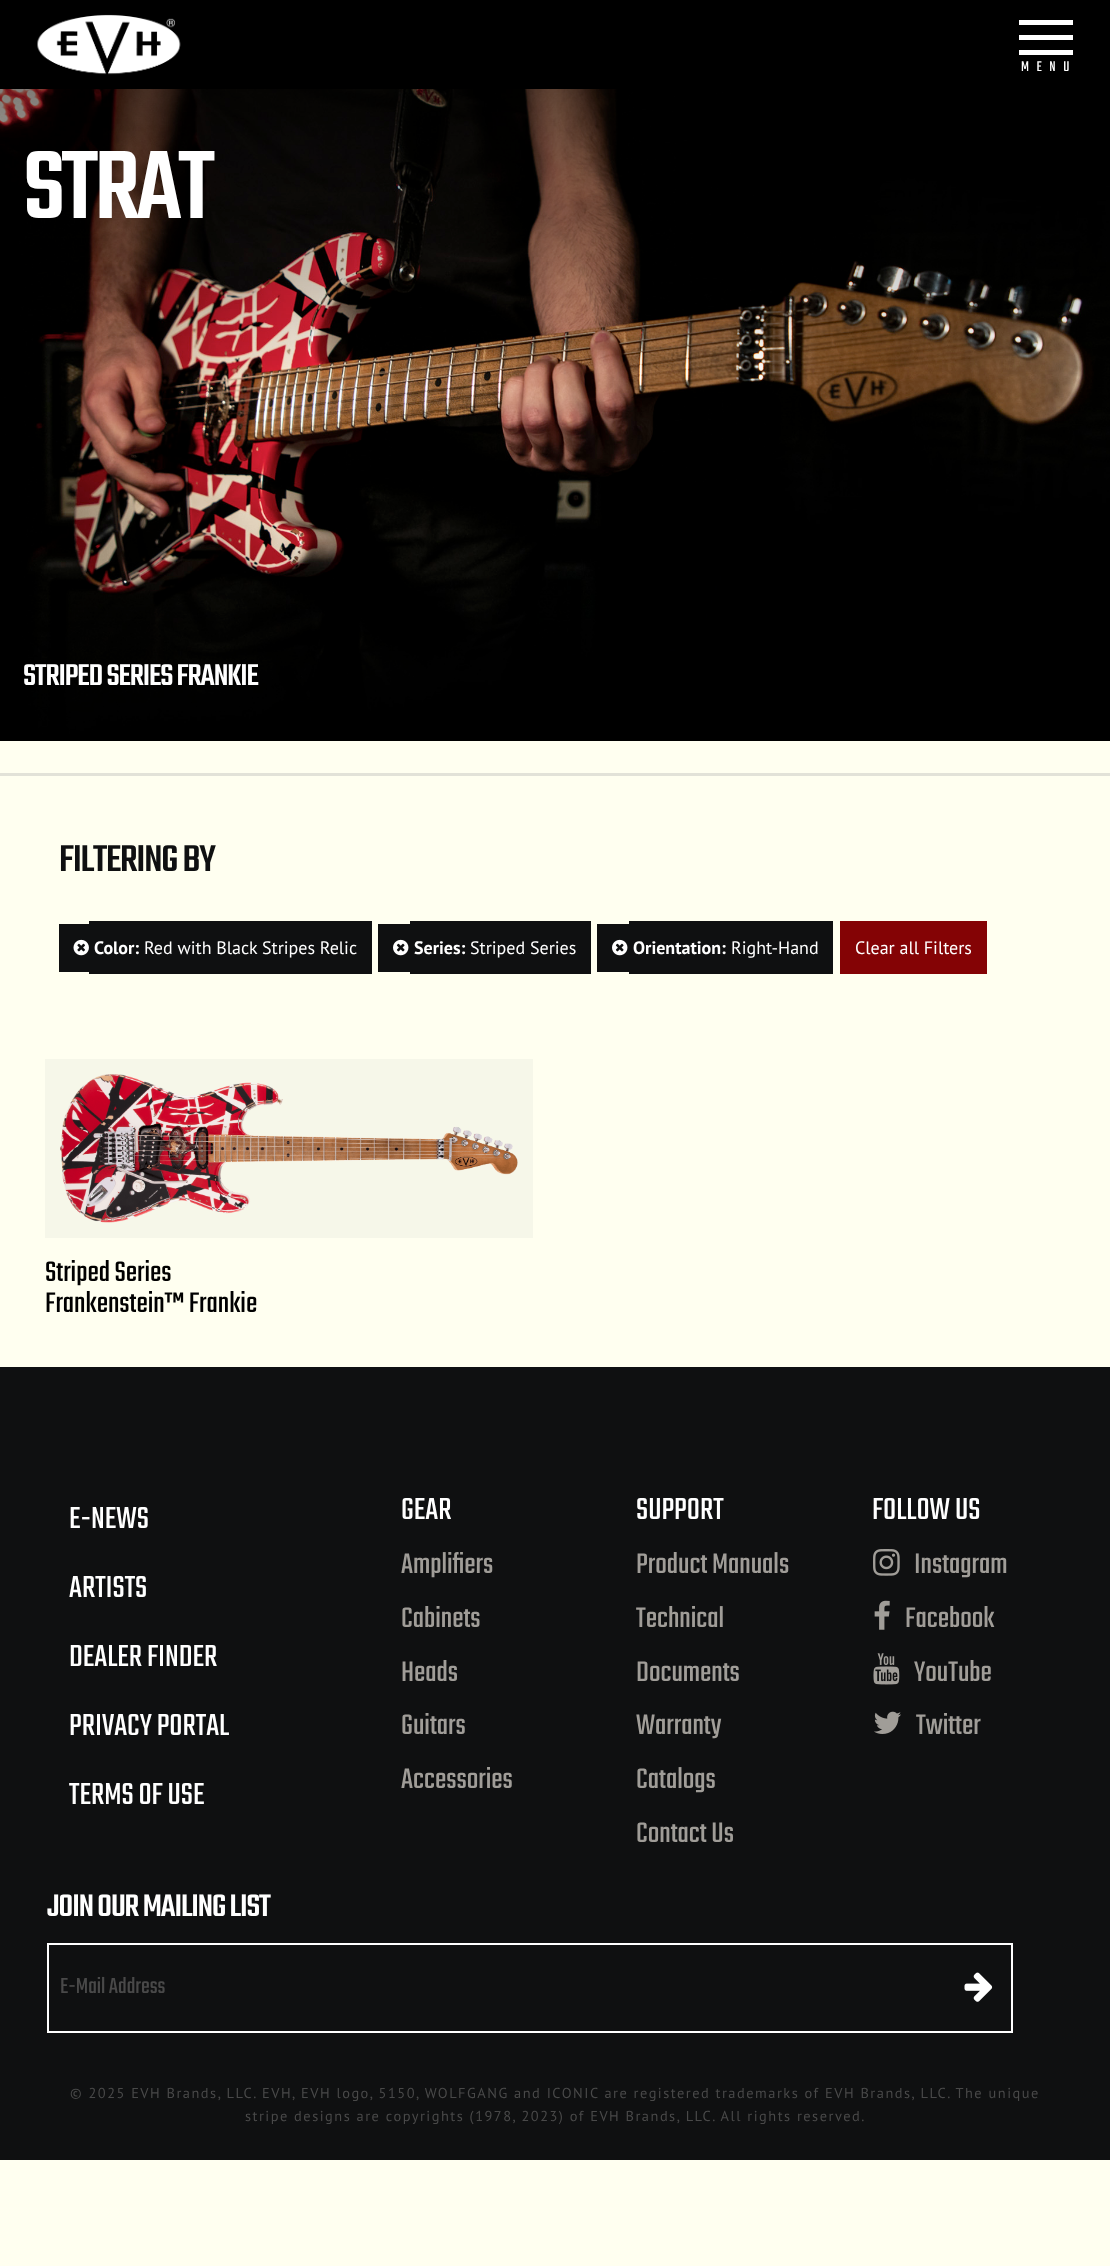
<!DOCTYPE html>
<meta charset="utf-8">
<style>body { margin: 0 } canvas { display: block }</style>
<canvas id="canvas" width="1110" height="2266"></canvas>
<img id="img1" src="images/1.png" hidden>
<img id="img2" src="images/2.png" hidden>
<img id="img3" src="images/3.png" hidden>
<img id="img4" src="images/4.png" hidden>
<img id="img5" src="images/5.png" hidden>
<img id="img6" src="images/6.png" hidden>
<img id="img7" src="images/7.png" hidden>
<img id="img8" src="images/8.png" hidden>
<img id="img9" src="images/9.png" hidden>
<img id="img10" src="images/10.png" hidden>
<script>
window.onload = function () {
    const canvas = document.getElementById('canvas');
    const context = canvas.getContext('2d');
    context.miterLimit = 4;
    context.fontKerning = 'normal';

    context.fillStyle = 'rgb(255, 255, 240)';
    context.fillRect(0, 0, 1110, 2266);
    context.fillStyle = 'rgb(0, 0, 0)';
    context.fillRect(0, 0, 1110, 89);
    context.drawImage(document.getElementById('img1'), 37, 14, 144, 61);
    context.fillStyle = 'rgb(255, 255, 255)';
    context.fillRect(1019, 35, 54, 5);
    context.fillRect(1019, 20, 54, 5);
    context.fillRect(1019, 50, 54, 5);
    context.drawImage(document.getElementById('img2'), 0, 89, 1110, 652);
    context.fillStyle = 'rgb(226, 226, 216)';
    context.fillRect(0, 773, 1110, 3);
    context.fillStyle = 'rgb(15, 16, 17)';
    context.fillRect(59, 924, 30, 48);
    context.fillRect(89, 921, 283, 53);
    context.drawImage(document.getElementById('img3'), 73, 939, 16, 17);
    context.fillRect(378, 924, 32, 48);
    context.fillRect(410, 921, 181, 53);
    context.drawImage(document.getElementById('img4'), 393, 939, 16, 17);
    context.fillRect(597, 924, 32, 48);
    context.fillRect(629, 921, 204, 53);
    context.drawImage(document.getElementById('img4'), 612, 939, 16, 17);
    context.fillStyle = 'rgb(132, 3, 5)';
    context.fillRect(840, 921, 147, 53);
    context.fillStyle = 'rgb(246, 247, 233)';
    context.fillRect(45, 1059, 488, 179);
    context.drawImage(document.getElementById('img5'), 60, 1074, 458, 149);
    context.fillStyle = 'rgb(15, 16, 17)';
    context.fillRect(0, 1367, 1110, 793);
    context.drawImage(document.getElementById('img6'), 873, 1549, 27, 27);
    context.drawImage(document.getElementById('img7'), 874, 1600, 16, 30);
    context.drawImage(document.getElementById('img8'), 873, 1653, 27, 32);
    context.drawImage(document.getElementById('img9'), 874, 1711, 27, 23);
    context.strokeStyle = 'rgb(255, 255, 255)';
    context.lineWidth = 2;
    context.strokeRect(48, 1944, 964, 88);
    context.drawImage(document.getElementById('img10'), 964, 1972, 29, 30);
    context.letterSpacing = '7.5px';
    context.font = '15.5px Teko';
    context.fillStyle = 'rgb(255, 255, 255)';
    context.fillText('MENU', 1021, 71);
    context.letterSpacing = '-3.75px';
    context.font = '500 106px Teko';
    context.fillText('STRAT', 23, 218);
    context.letterSpacing = '-1.1px';
    context.font = '500 33px Teko';
    context.fillText('STRIPED SERIES FRANKIE', 23, 685);
    context.letterSpacing = '-1.25px';
    context.font = '500 41px Teko';
    context.fillStyle = 'rgb(15, 16, 17)';
    context.fillText('FILTERING BY', 59, 871);
    context.letterSpacing = '0px';
    context.font = 'bold 18px PT Sans';
    context.fillStyle = 'rgb(255, 255, 255)';
    context.fillText('Color:', 94, 954);
    context.font = '18px PT Sans';
    context.fillText('Red with Black Stripes Relic', 144, 954);
    context.font = 'bold 18px PT Sans';
    context.fillText('Series:', 414, 954);
    context.font = '18px PT Sans';
    context.fillText('Striped Series', 470, 954);
    context.font = 'bold 18px PT Sans';
    context.fillText('Orientation:', 633, 954);
    context.font = '18px PT Sans';
    context.fillText('Right-Hand', 731, 954);
    context.fillText('Clear all Filters', 855, 954);
    context.font = '31.25px Teko';
    context.fillStyle = 'rgb(0, 0, 0)';
    context.fillText('Striped Series', 45, 1281);
    context.fillText('Frankenstein™ Frankie', 45, 1312);
    context.font = '33.5px Teko';
    context.fillStyle = 'rgb(255, 255, 255)';
    context.fillText('E-NEWS', 69, 1528);
    context.fillText('ARTISTS', 69, 1597);
    context.fillText('DEALER FINDER', 69, 1666);
    context.fillText('PRIVACY PORTAL', 69, 1735);
    context.fillText('TERMS OF USE', 69, 1804);
    context.fillText('GEAR', 401, 1519);
    context.font = '31.25px Teko';
    context.fillStyle = 'rgb(160, 157, 152)';
    context.fillText('Amplifiers', 401, 1573);
    context.fillText('Cabinets', 401, 1627);
    context.fillText('Heads', 401, 1681);
    context.fillText('Guitars', 401, 1734);
    context.fillText('Accessories', 401, 1788);
    context.font = '33.5px Teko';
    context.fillStyle = 'rgb(255, 255, 255)';
    context.fillText('SUPPORT', 636, 1519);
    context.font = '31.25px Teko';
    context.fillStyle = 'rgb(160, 157, 152)';
    context.fillText('Product Manuals', 636, 1573);
    context.fillText('Technical', 636, 1627);
    context.fillText('Documents', 636, 1681);
    context.fillText('Warranty', 636, 1734);
    context.fillText('Catalogs', 636, 1788);
    context.fillText('Contact Us', 636, 1842);
    context.font = '33.5px Teko';
    context.fillStyle = 'rgb(255, 255, 255)';
    context.fillText('FOLLOW US', 872, 1519);
    context.font = '31.25px Teko';
    context.fillStyle = 'rgb(160, 157, 152)';
    context.fillText('Instagram', 914, 1573);
    context.fillText('Facebook', 905, 1627);
    context.fillText('YouTube', 914, 1681);
    context.fillText('Twitter', 916, 1734);
    context.letterSpacing = '-1.1px';
    context.font = '500 34.25px Teko';
    context.fillStyle = 'rgb(255, 255, 255)';
    context.fillText('JOIN OUR MAILING LIST', 47, 1916);
    context.letterSpacing = '0px';
    context.font = '24px Teko';
    context.fillStyle = 'rgb(73, 73, 73)';
    context.fillText('E-Mail Address', 60, 1993);
    context.letterSpacing = '1.5px';
    context.font = '14.4px PT Sans';
    context.fillText('© 2025 EVH Brands, LLC. EVH, EVH logo, 5150, WOLFGANG and ICONIC are registered trademarks of EVH Brands, LLC. The unique', 70, 2098);
    context.fillText('stripe designs are copyrights (1978, 2023) of EVH Brands, LLC. All rights reserved.', 245, 2121);
};
</script>
